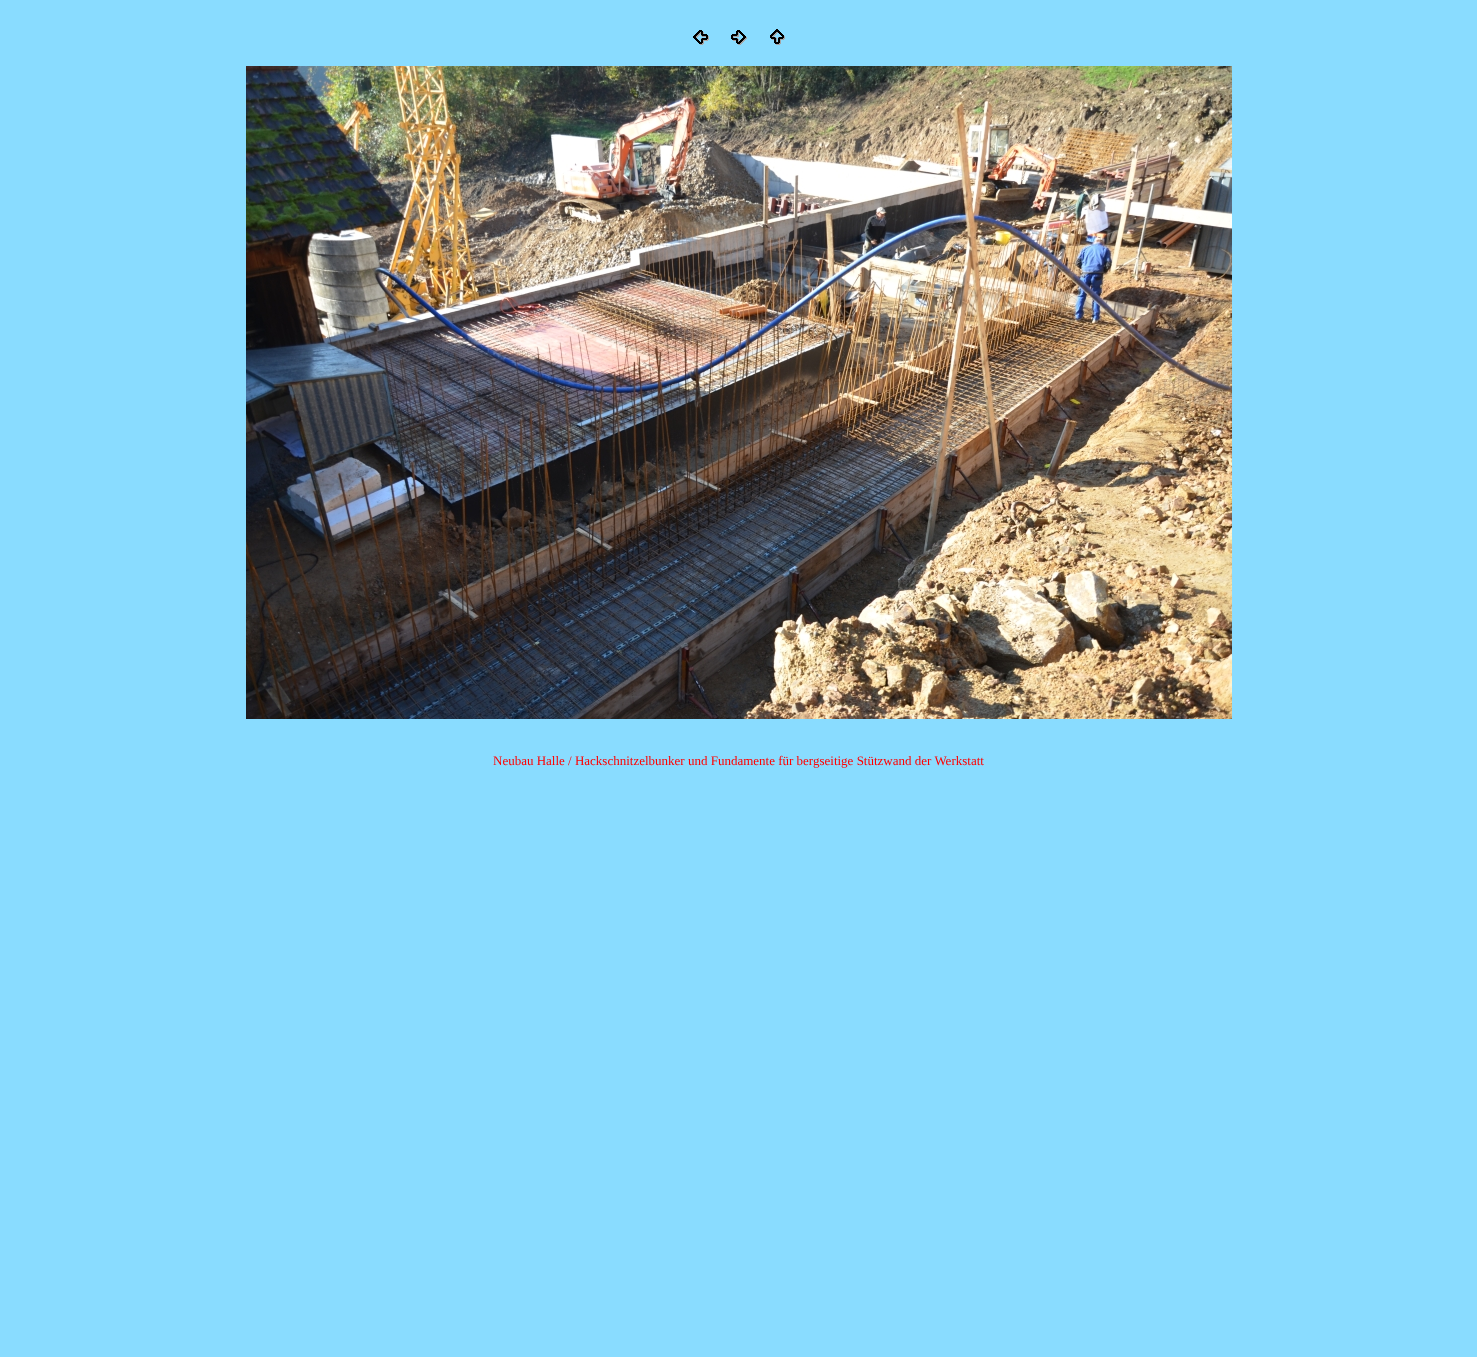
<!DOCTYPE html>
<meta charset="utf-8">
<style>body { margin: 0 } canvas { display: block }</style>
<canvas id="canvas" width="1477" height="1357"></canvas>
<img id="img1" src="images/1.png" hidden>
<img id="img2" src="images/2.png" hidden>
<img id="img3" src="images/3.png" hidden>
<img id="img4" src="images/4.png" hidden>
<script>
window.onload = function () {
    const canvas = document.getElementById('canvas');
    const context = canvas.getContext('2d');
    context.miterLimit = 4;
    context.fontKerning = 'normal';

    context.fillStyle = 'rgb(137, 220, 255)';
    context.fillRect(0, 0, 1477, 1357);
    context.drawImage(document.getElementById('img1'), 693, 30, 16, 15);
    context.drawImage(document.getElementById('img2'), 731, 30, 16, 15);
    context.drawImage(document.getElementById('img3'), 770, 29, 15, 16);
    context.drawImage(document.getElementById('img4'), 246, 66, 986, 653);
    context.font = '13px Liberation Serif';
    context.fillStyle = 'rgb(255, 0, 0)';
    context.fillText('Neubau Halle / Hackschnitzelbunker und Fundamente für bergseitige Stützwand der Werkstatt', 493, 765);
};
</script>
